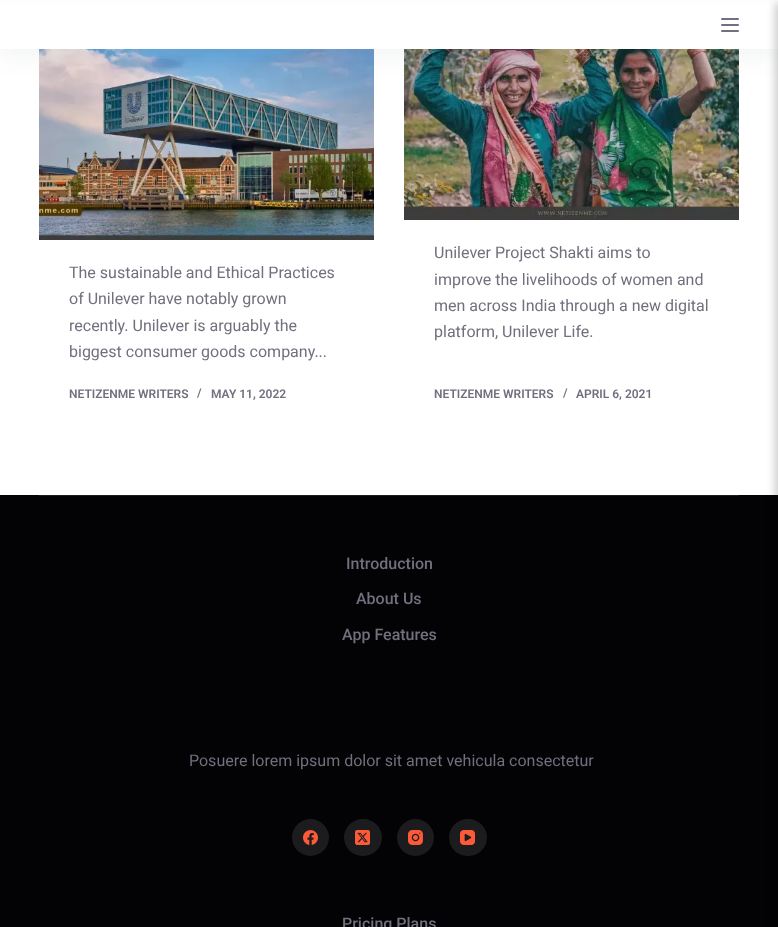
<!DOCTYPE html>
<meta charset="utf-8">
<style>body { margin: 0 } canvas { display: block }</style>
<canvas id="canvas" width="778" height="927"></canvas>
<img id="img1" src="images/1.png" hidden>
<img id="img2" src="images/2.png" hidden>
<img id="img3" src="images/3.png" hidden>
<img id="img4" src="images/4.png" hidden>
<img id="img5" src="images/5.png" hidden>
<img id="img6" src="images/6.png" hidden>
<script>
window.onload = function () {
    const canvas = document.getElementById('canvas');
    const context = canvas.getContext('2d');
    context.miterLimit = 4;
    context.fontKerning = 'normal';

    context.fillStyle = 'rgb(255, 255, 255)';
    context.fillRect(0, 0, 778, 927);
    context.drawImage(document.getElementById('img1'), 39, 49, 335, 191);
    context.drawImage(document.getElementById('img2'), 404, 49, 335, 171);
    context.fillStyle = 'rgba(43, 61, 79, 0.05)';
    context.filter = 'blur(10px)';
    context.beginPath();
    context.rect(0, 10, 778, 49);
    context.fill();
    context.filter = 'none';
    context.fillStyle = 'rgb(255, 255, 255)';
    context.fillRect(0, 3, 778, 46);
    context.fillStyle = 'rgb(112, 112, 126)';
    context.beginPath();
    context.roundRect(721, 18, 18, 2, 1);
    context.fill();
    context.beginPath();
    context.roundRect(721, 24, 18, 2, 1);
    context.fill();
    context.beginPath();
    context.roundRect(721, 30, 18, 2, 1);
    context.fill();
    context.fillStyle = 'rgb(3, 3, 6)';
    context.fillRect(0, 495, 778, 432);
    context.fillStyle = 'rgb(28, 28, 31)';
    context.fillRect(39, 495, 700, 1);
    context.beginPath();
    context.arc(310.5, 837.5, 18.5, 0, 2 * Math.PI);
    context.fill();
    context.drawImage(document.getElementById('img3'), 303, 830, 15, 15);
    context.beginPath();
    context.roundRect(344, 819, 38, 37, 18.5);
    context.fill();
    context.drawImage(document.getElementById('img4'), 355, 830, 15, 15);
    context.beginPath();
    context.arc(415.5, 837.5, 18.5, 0, 2 * Math.PI);
    context.fill();
    context.drawImage(document.getElementById('img5'), 408, 830, 15, 15);
    context.beginPath();
    context.roundRect(449, 819, 38, 37, 18.5);
    context.fill();
    context.drawImage(document.getElementById('img6'), 460, 830, 15, 15);
    context.fillStyle = 'rgba(0, 0, 0, 0.2)';
    context.filter = 'blur(4.5px)';
    context.beginPath();
    context.rect(775, 3, 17, 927);
    context.fill();
    context.filter = 'none';
    context.font = '16px Roboto';
    context.fillStyle = 'rgb(112, 112, 126)';
    context.fillText('The sustainable and Ethical Practices', 69, 278);
    context.fillText('of Unilever have notably grown', 69, 304);
    context.fillText('recently. Unilever is arguably the', 69, 331);
    context.fillText('biggest consumer goods company...', 69, 357);
    context.font = '600 12px Roboto';
    context.fillText('NETIZENME WRITERS', 69, 398);
    context.fillText('/', 197, 397);
    context.fillText('MAY 11, 2022', 211, 398);
    context.font = '16px Roboto';
    context.fillText('Unilever Project Shakti aims to', 434, 258);
    context.fillText('improve the livelihoods of women and', 434, 285);
    context.fillText('men across India through a new digital', 434, 311);
    context.fillText('platform, Unilever Life.', 434, 337);
    context.font = '600 12px Roboto';
    context.fillText('NETIZENME WRITERS', 434, 398);
    context.fillText('/', 563, 397);
    context.fillText('APRIL 6, 2021', 576, 398);
    context.font = '500 16px Roboto';
    context.fillText('Introduction', 346, 569);
    context.fillText('About Us', 356, 604);
    context.fillText('App Features', 342, 640);
    context.font = '16px Roboto';
    context.fillText('Posuere lorem ipsum dolor sit amet vehicula consectetur', 189, 766);
    context.font = '500 16px Roboto';
    context.fillText('Pricing Plans', 342, 929);
};
</script>
